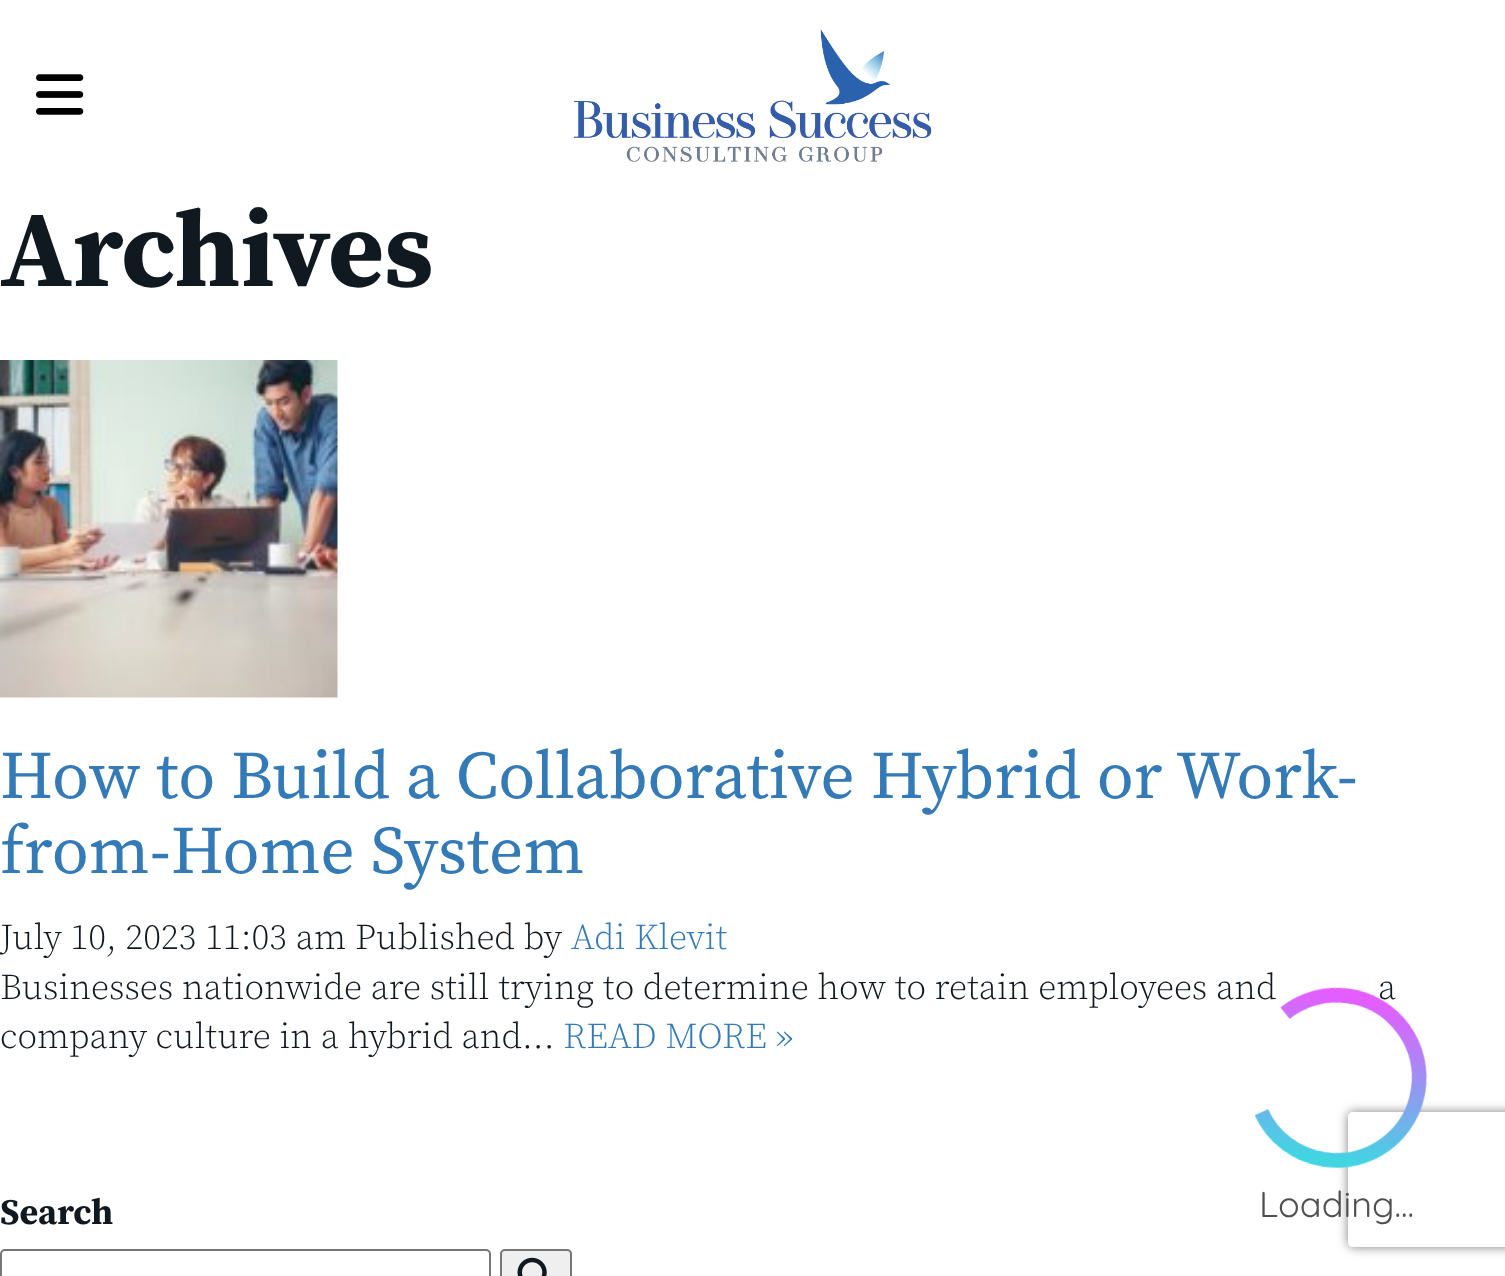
<!DOCTYPE html>
<meta charset="utf-8">
<style>body { margin: 0 } canvas { display: block }</style>
<canvas id="canvas" width="1505" height="1276"></canvas>
<img id="img1" src="images/1.png" hidden>
<img id="img2" src="images/2.png" hidden>
<img id="img3" src="images/3.png" hidden>
<img id="img4" src="images/5.png" hidden>
<img id="img5" src="images/4.png" hidden>
<script>
window.onload = function () {
    const canvas = document.getElementById('canvas');
    const context = canvas.getContext('2d');
    context.miterLimit = 4;
    context.fontKerning = 'normal';

    context.fillStyle = 'rgb(255, 255, 255)';
    context.fillRect(0, 0, 1505, 1276);
    context.drawImage(document.getElementById('img1'), 36, 74, 48, 41);
    context.drawImage(document.getElementById('img2'), 573, 29, 359, 133);
    context.drawImage(document.getElementById('img3'), 0, 360, 338, 338);
    context.beginPath();
    context.roundRect(1, 1250, 489, 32, 4);
    context.strokeStyle = 'rgb(118, 118, 118)';
    context.lineWidth = 2;
    context.stroke();
    context.fillStyle = 'rgb(239, 239, 239)';
    context.beginPath();
    context.roundRect(501, 1250, 70, 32, 4);
    context.fill();
    context.stroke();
    context.drawImage(document.getElementById('img4'), 517, 1257, 30, 19);
    context.save();
    context.beginPath();
    context.moveTo(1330, 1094);
    context.lineTo(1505, 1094);
    context.lineTo(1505, 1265);
    context.lineTo(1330, 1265);
    context.closePath();
    context.moveTo(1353, 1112);
    context.lineTo(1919, 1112);
    context.bezierCurveTo(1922, 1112, 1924, 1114, 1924, 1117);
    context.lineTo(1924, 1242);
    context.bezierCurveTo(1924, 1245, 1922, 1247, 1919, 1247);
    context.lineTo(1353, 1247);
    context.bezierCurveTo(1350, 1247, 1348, 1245, 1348, 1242);
    context.lineTo(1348, 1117);
    context.bezierCurveTo(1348, 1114, 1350, 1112, 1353, 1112);
    context.closePath();
    context.clip('evenodd');
    context.fillStyle = 'rgb(128, 128, 128)';
    context.filter = 'blur(5.5px)';
    context.beginPath();
    context.roundRect(1348, 1112, 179, 135, 5);
    context.fill();
    context.filter = 'none';
    context.restore();
    context.font = 'bold 108px Source Serif Pro';
    context.fillStyle = 'rgb(17, 25, 32)';
    context.fillText('Archives', 0, 286);
    context.font = '67.5px Source Serif Pro';
    context.fillStyle = 'rgb(51, 122, 183)';
    context.fillText('How to Build a Collaborative Hybrid or Work-', 0, 798);
    context.fillText('from-Home System', 0, 873);
    context.font = '300 36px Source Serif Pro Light';
    context.fillStyle = 'rgb(17, 25, 32)';
    context.fillText('July 10, 2023 11:03 am Published by', 0, 949);
    context.fillStyle = 'rgb(51, 122, 183)';
    context.fillText('Adi Klevit', 571, 949);
    context.fillStyle = 'rgb(17, 25, 32)';
    context.fillText('Businesses nationwide are still trying to determine how to retain employees and', 0, 999);
    context.fillText('a', 1378, 999);
    context.fillText('company culture in a hybrid and...', 0, 1048);
    context.fillStyle = 'rgb(51, 122, 183)';
    context.fillText('READ MORE »', 563, 1048);
    context.drawImage(document.getElementById('img5'), 1254, 987, 173, 238);
    context.font = 'bold 36px Source Serif Pro';
    context.fillStyle = 'rgb(17, 25, 32)';
    context.fillText('Search', 0, 1224);
};
</script>
